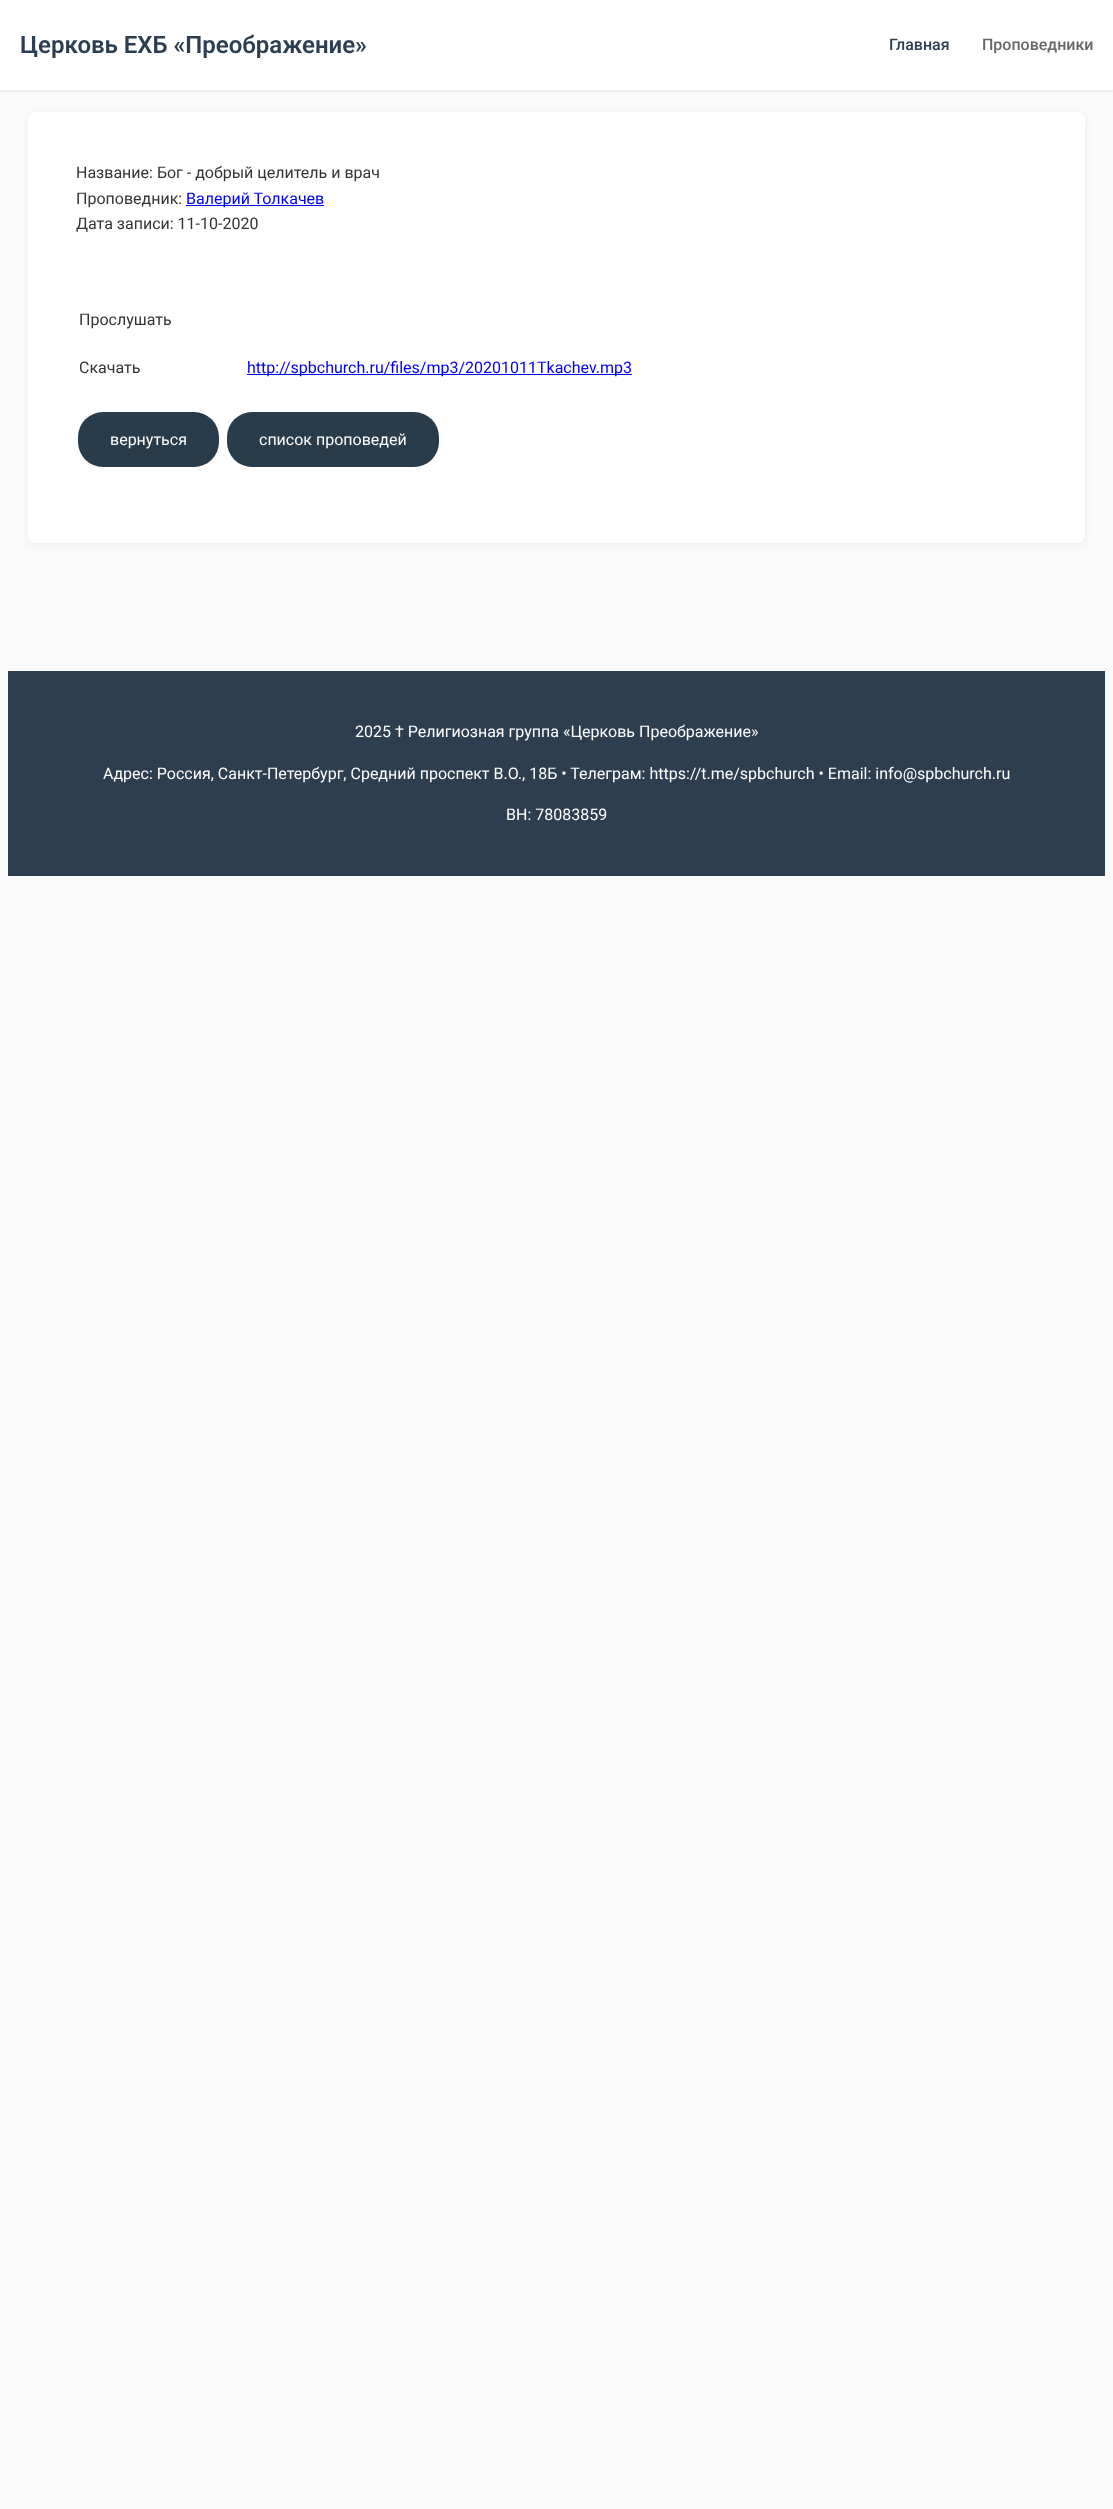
<!DOCTYPE html>
<meta charset="utf-8">
<style>body { margin: 0 } canvas { display: block }</style>
<canvas id="canvas" width="1113" height="2509"></canvas>
<script>
window.onload = function () {
    const canvas = document.getElementById('canvas');
    const context = canvas.getContext('2d');
    context.miterLimit = 4;
    context.fontKerning = 'normal';

    context.fillStyle = 'rgb(250, 250, 250)';
    context.fillRect(0, 0, 1113, 2509);
    context.fillStyle = 'rgba(0, 0, 0, 0.1)';
    context.filter = 'blur(1.5px)';
    context.beginPath();
    context.rect(0, 1, 1113, 90);
    context.fill();
    context.filter = 'none';
    context.fillStyle = 'rgb(255, 255, 255)';
    context.fillRect(0, 0, 1113, 90);
    context.fillStyle = 'rgba(0, 0, 0, 0.05)';
    context.filter = 'blur(5px)';
    context.beginPath();
    context.roundRect(28, 114, 1057, 431, 8);
    context.fill();
    context.filter = 'none';
    context.fillStyle = 'rgb(255, 255, 255)';
    context.beginPath();
    context.roundRect(28, 112, 1057, 431, 8);
    context.fill();
    context.fillStyle = 'rgb(0, 0, 238)';
    context.fillRect(186, 205, 138, 1);
    context.fillRect(247, 374, 385, 1);
    context.fillStyle = 'rgb(40, 60, 75)';
    context.beginPath();
    context.roundRect(78, 412, 141, 55, 25);
    context.fill();
    context.beginPath();
    context.roundRect(227, 412, 212, 55, 25);
    context.fill();
    context.fillStyle = 'rgb(44, 62, 80)';
    context.fillRect(8, 671, 1097, 205);
    context.font = '600 24px Roboto';
    context.fillText('Церковь ЕХБ «Преображение»', 20, 53);
    context.font = '500 16px Roboto';
    context.fillText('Главная', 889, 50);
    context.fillStyle = 'rgb(102, 102, 102)';
    context.fillText('Проповедники', 982, 50);
    context.font = '16px Roboto';
    context.fillStyle = 'rgb(51, 51, 51)';
    context.fillText('Название: Бог - добрый целитель и врач', 76, 178);
    context.fillText('Проповедник:', 76, 204);
    context.fillStyle = 'rgb(0, 0, 238)';
    context.fillText('Валерий Толкачев', 186, 204);
    context.fillStyle = 'rgb(51, 51, 51)';
    context.fillText('Дата записи: 11-10-2020', 76, 229);
    context.fillText('Прослушать', 79, 325);
    context.fillText('Скачать', 79, 373);
    context.fillStyle = 'rgb(0, 0, 238)';
    context.fillText('http://spbchurch.ru/files/mp3/20201011Tkachev.mp3', 247, 373);
    context.fillStyle = 'rgb(255, 255, 255)';
    context.fillText('вернуться', 110, 445);
    context.fillText('список проповедей', 259, 445);
    context.fillText('2025 † Религиозная группа «Церковь Преображение»', 355, 737);
    context.fillText('Адрес: Россия, Санкт-Петербург, Средний проспект В.О., 18Б • Телеграм: https://t.me/spbchurch • Email: info@spbchurch.ru', 103, 779);
    context.fillText('ВН: 78083859', 506, 820);
};
</script>
